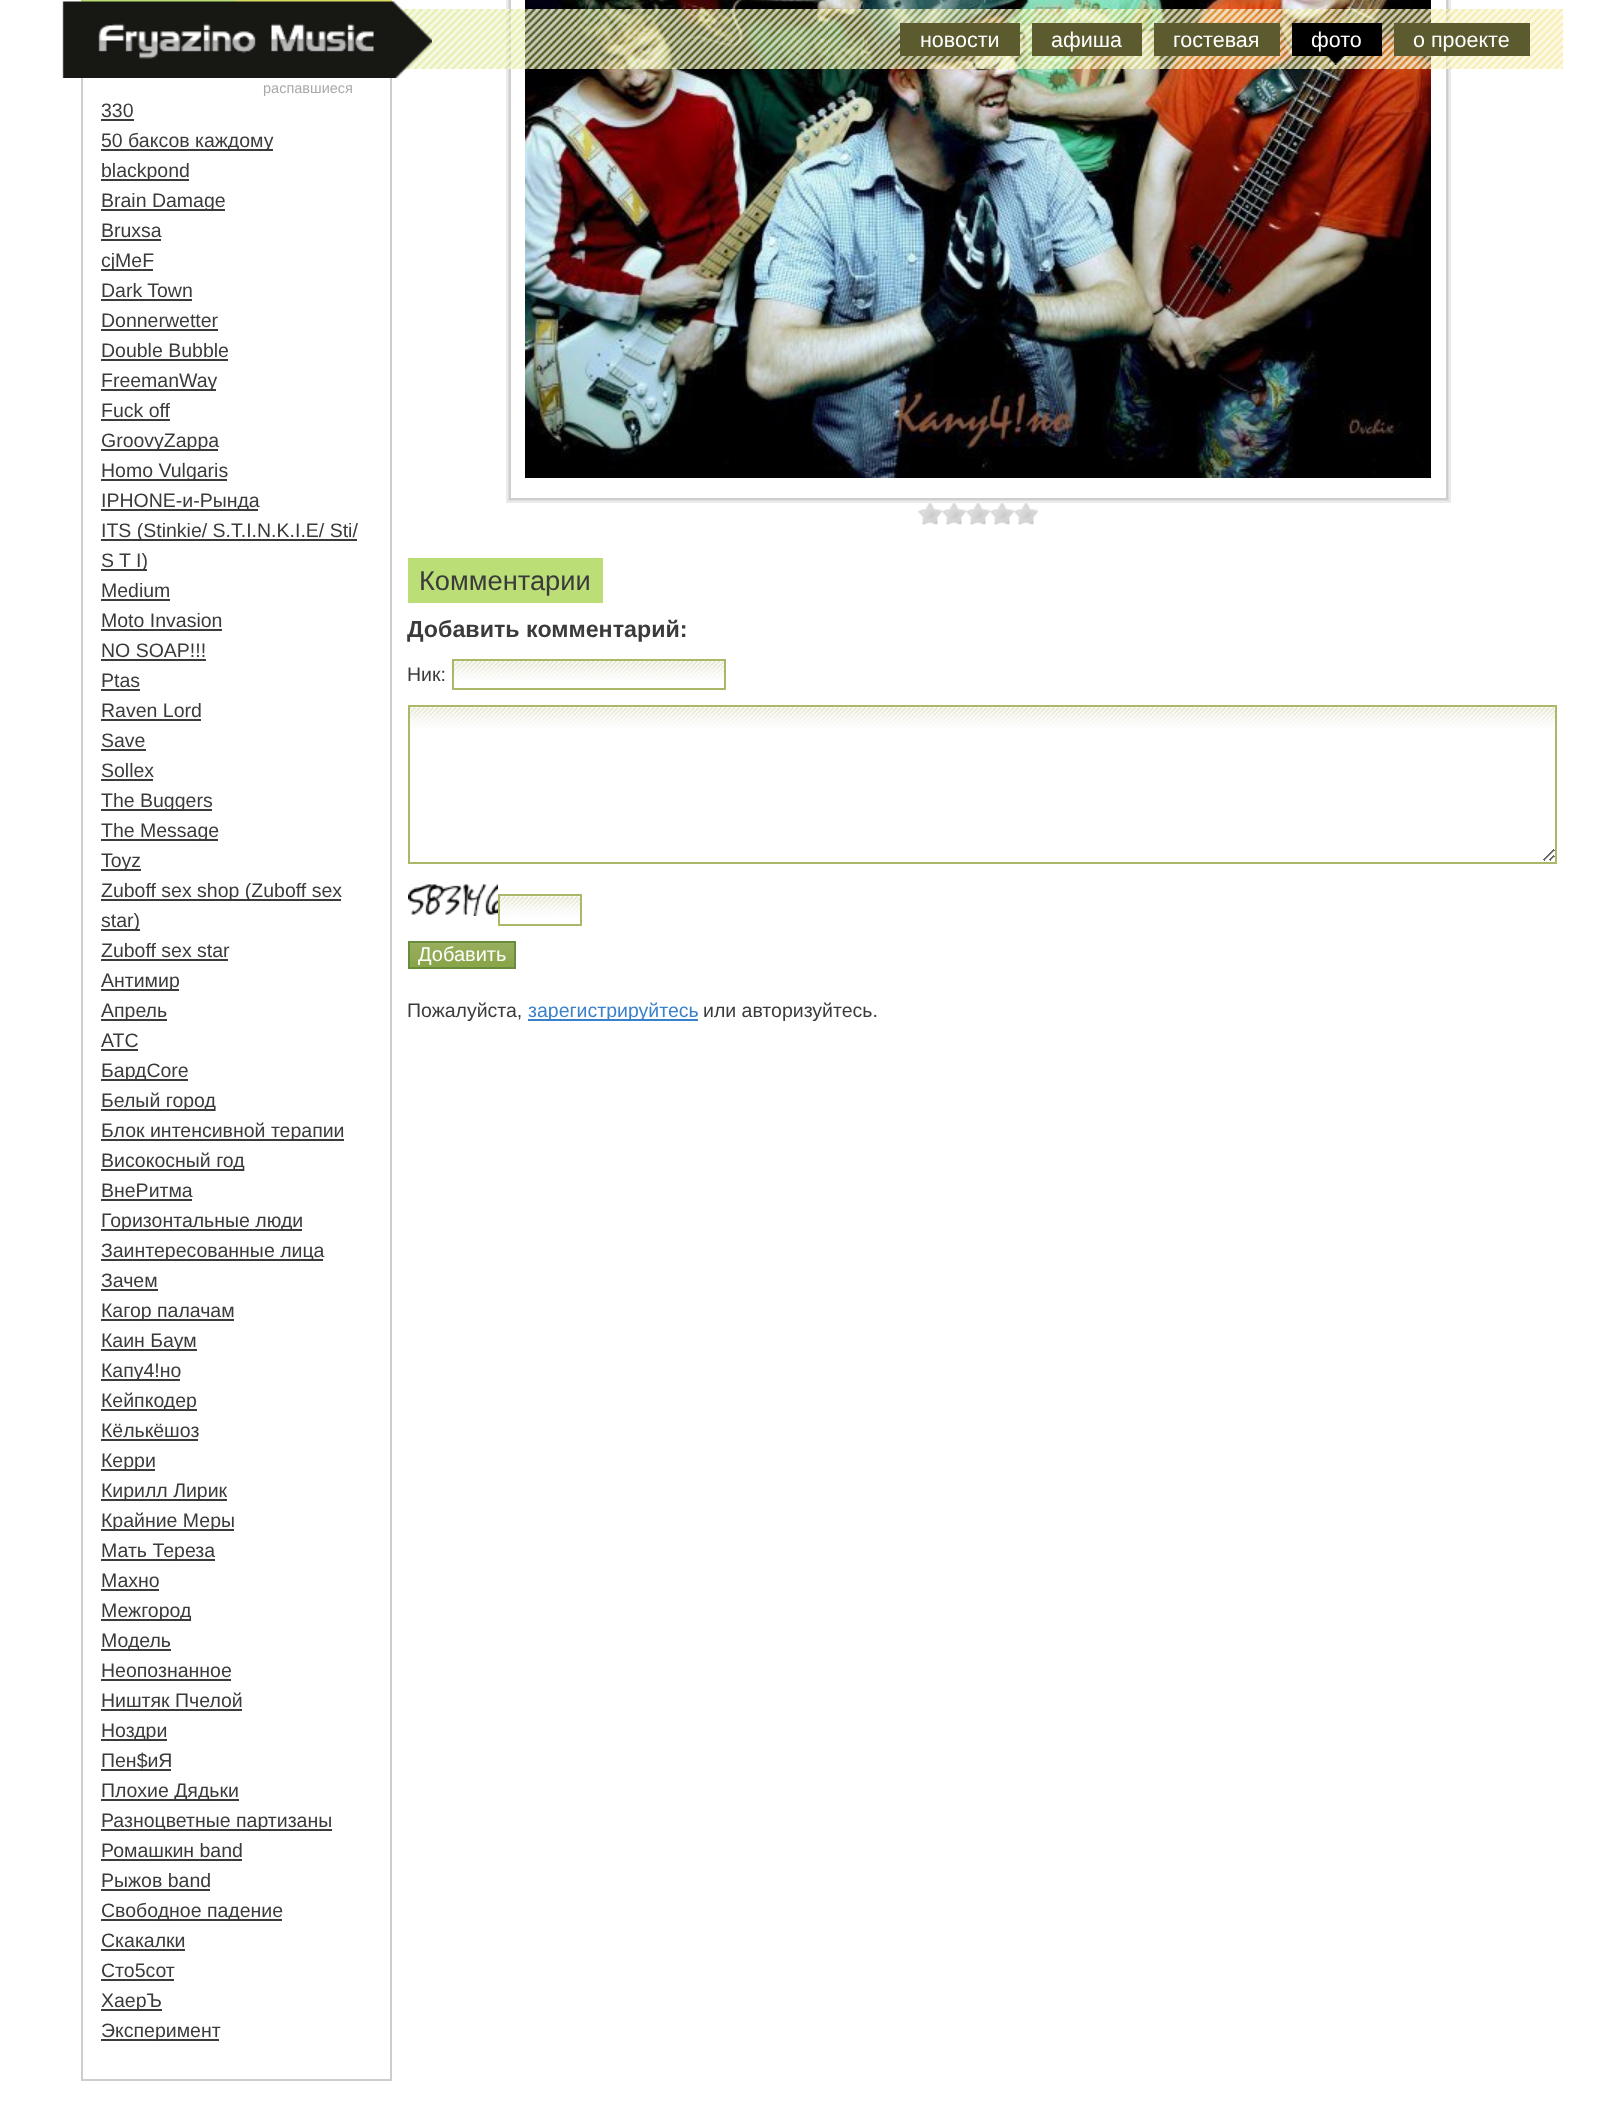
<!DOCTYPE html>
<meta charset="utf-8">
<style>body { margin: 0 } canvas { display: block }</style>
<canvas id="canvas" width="1624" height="2113"></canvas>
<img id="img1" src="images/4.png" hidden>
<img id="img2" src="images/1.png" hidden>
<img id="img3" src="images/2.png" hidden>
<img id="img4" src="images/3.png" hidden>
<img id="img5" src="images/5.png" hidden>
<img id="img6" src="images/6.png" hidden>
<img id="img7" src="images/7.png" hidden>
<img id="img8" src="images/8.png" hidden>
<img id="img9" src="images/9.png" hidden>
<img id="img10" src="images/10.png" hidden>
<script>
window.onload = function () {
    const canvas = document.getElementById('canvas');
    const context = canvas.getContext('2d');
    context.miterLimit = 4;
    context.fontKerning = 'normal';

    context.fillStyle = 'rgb(255, 255, 255)';
    context.fillRect(0, 0, 1624, 2113);
    context.fillStyle = 'rgb(235, 235, 235)';
    context.fillRect(1449, 0, 2, 503);
    context.fillRect(506, 501, 945, 2);
    context.strokeStyle = 'rgb(222, 222, 222)';
    context.lineWidth = 2;
    context.strokeRect(508, -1, 940, 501);
    context.fillRect(506, 0, 2, 503);
    context.strokeStyle = 'rgb(206, 206, 206)';
    context.strokeRect(510, -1, 937, 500);
    context.drawImage(document.getElementById('img1'), 525, 0, 906, 478);
    context.drawImage(document.getElementById('img2'), 62, 9, 1501, 60);
    context.fillStyle = 'rgb(187, 222, 118)';
    context.fillRect(81, 0, 156, 2);
    context.fillStyle = 'rgb(216, 220, 97)';
    context.fillRect(237, 0, 155, 2);
    context.drawImage(document.getElementById('img3'), 62, 1, 370, 77);
    context.fillStyle = 'rgb(92, 91, 48)';
    context.fillRect(900, 23, 120, 33);
    context.fillRect(1032, 23, 110, 33);
    context.fillRect(1154, 23, 126, 33);
    context.fillStyle = 'rgb(0, 0, 0)';
    context.fillRect(1292, 23, 90, 33);
    context.fillStyle = 'rgb(92, 91, 48)';
    context.fillRect(1394, 23, 136, 33);
    context.drawImage(document.getElementById('img4'), 1327, 56, 18, 9);
    context.fillStyle = 'rgb(205, 205, 205)';
    context.fillRect(390, 78, 2, 2003);
    context.fillRect(81, 2079, 311, 2);
    context.fillRect(81, 78, 2, 2003);
    context.fillStyle = 'rgb(59, 59, 59)';
    context.fillRect(101, 119, 33, 2);
    context.fillRect(101, 149, 172, 2);
    context.fillRect(101, 179, 88, 2);
    context.fillRect(101, 209, 124, 2);
    context.fillRect(101, 239, 60, 2);
    context.fillRect(101, 269, 52, 2);
    context.fillRect(101, 299, 91, 2);
    context.fillRect(101, 329, 117, 2);
    context.fillRect(101, 359, 127, 2);
    context.fillRect(101, 389, 115, 2);
    context.fillRect(101, 419, 69, 2);
    context.fillRect(101, 449, 117, 2);
    context.fillRect(101, 479, 126, 2);
    context.fillRect(101, 509, 157, 2);
    context.fillRect(101, 539, 256, 2);
    context.fillRect(101, 569, 46, 2);
    context.fillRect(101, 599, 69, 2);
    context.fillRect(101, 629, 121, 2);
    context.fillRect(101, 659, 105, 2);
    context.fillRect(101, 689, 39, 2);
    context.fillRect(101, 719, 100, 2);
    context.fillRect(101, 749, 45, 2);
    context.fillRect(101, 779, 52, 2);
    context.fillRect(101, 809, 111, 2);
    context.fillRect(101, 839, 117, 2);
    context.fillRect(101, 869, 40, 2);
    context.fillRect(101, 899, 240, 2);
    context.fillRect(101, 929, 39, 2);
    context.fillRect(101, 959, 127, 2);
    context.fillRect(101, 989, 78, 2);
    context.fillRect(101, 1019, 66, 2);
    context.fillRect(101, 1049, 37, 2);
    context.fillRect(101, 1079, 87, 2);
    context.fillRect(101, 1109, 114, 2);
    context.fillRect(101, 1139, 243, 2);
    context.fillRect(101, 1169, 142, 2);
    context.fillRect(101, 1199, 91, 2);
    context.fillRect(101, 1229, 201, 2);
    context.fillRect(101, 1259, 222, 2);
    context.fillRect(101, 1289, 57, 2);
    context.fillRect(101, 1319, 133, 2);
    context.fillRect(101, 1349, 96, 2);
    context.fillRect(101, 1379, 79, 2);
    context.fillRect(101, 1409, 96, 2);
    context.fillRect(101, 1439, 97, 2);
    context.fillRect(101, 1469, 54, 2);
    context.fillRect(101, 1499, 126, 2);
    context.fillRect(101, 1529, 133, 2);
    context.fillRect(101, 1559, 114, 2);
    context.fillRect(101, 1589, 58, 2);
    context.fillRect(101, 1619, 90, 2);
    context.fillRect(101, 1649, 70, 2);
    context.fillRect(101, 1679, 130, 2);
    context.fillRect(101, 1709, 141, 2);
    context.fillRect(101, 1739, 66, 2);
    context.fillRect(101, 1769, 70, 2);
    context.fillRect(101, 1799, 138, 2);
    context.fillRect(101, 1829, 231, 2);
    context.fillRect(101, 1859, 141, 2);
    context.fillRect(101, 1889, 109, 2);
    context.fillRect(101, 1919, 181, 2);
    context.fillRect(101, 1949, 84, 2);
    context.fillRect(101, 1979, 73, 2);
    context.fillRect(101, 2009, 61, 2);
    context.fillRect(101, 2039, 118, 2);
    context.drawImage(document.getElementById('img5'), 918, 502, 120, 23);
    context.fillStyle = 'rgb(187, 222, 118)';
    context.fillRect(408, 558, 195, 45);
    context.drawImage(document.getElementById('img6'), 451, 660, 273, 20);
    context.strokeStyle = 'rgb(171, 184, 103)';
    context.strokeRect(453, 660, 272, 29);
    context.drawImage(document.getElementById('img7'), 410, 707, 1145, 154);
    context.strokeRect(409, 706, 1147, 157);
    context.drawImage(document.getElementById('img8'), 408, 884, 90, 32);
    context.drawImage(document.getElementById('img9'), 500, 896, 80, 20);
    context.strokeRect(499, 895, 82, 30);
    context.fillStyle = 'rgb(139, 165, 75)';
    context.fillRect(410, 961, 104, 6);
    context.drawImage(document.getElementById('img10'), 410, 943, 104, 18);
    context.strokeStyle = 'rgb(103, 140, 61)';
    context.strokeRect(409, 942, 106, 26);
    context.fillStyle = 'rgb(58, 129, 204)';
    context.fillRect(528, 1019, 170, 2);
    context.font = '21.5px Liberation Sans';
    context.fillStyle = 'rgb(255, 255, 255)';
    context.fillText('новости', 920, 47);
    context.fillText('афиша', 1051, 47);
    context.fillText('гостевая', 1173, 47);
    context.fillText('фото', 1311, 47);
    context.fillText('о проекте', 1413, 47);
    context.font = '14.5px Liberation Sans';
    context.fillStyle = 'rgb(170, 170, 170)';
    context.fillText('распавшиеся', 263, 93);
    context.font = '19.5px Liberation Sans';
    context.fillStyle = 'rgb(59, 59, 59)';
    context.fillText('330', 101, 117);
    context.fillText('50 баксов каждому', 101, 147);
    context.fillText('blackpond', 101, 177);
    context.fillText('Brain Damage', 101, 207);
    context.fillText('Bruxsa', 101, 237);
    context.fillText('cjMeF', 101, 267);
    context.fillText('Dark Town', 101, 297);
    context.fillText('Donnerwetter', 101, 327);
    context.fillText('Double Bubble', 101, 357);
    context.fillText('FreemanWay', 101, 387);
    context.fillText('Fuck off', 101, 417);
    context.fillText('GroovyZappa', 101, 447);
    context.fillText('Homo Vulgaris', 101, 477);
    context.fillText('IPHONE-и-Рында', 101, 507);
    context.fillText('ITS (Stinkie/ S.T.I.N.K.I.E/ Sti/', 101, 537);
    context.fillText('S T I)', 101, 567);
    context.fillText('Medium', 101, 597);
    context.fillText('Moto Invasion', 101, 627);
    context.fillText('NO SOAP!!!', 101, 657);
    context.fillText('Ptas', 101, 687);
    context.fillText('Raven Lord', 101, 717);
    context.fillText('Save', 101, 747);
    context.fillText('Sollex', 101, 777);
    context.fillText('The Buggers', 101, 807);
    context.fillText('The Message', 101, 837);
    context.fillText('Toyz', 101, 867);
    context.fillText('Zuboff sex shop (Zuboff sex', 101, 897);
    context.fillText('star)', 101, 927);
    context.fillText('Zuboff sex star', 101, 957);
    context.fillText('Антимир', 101, 987);
    context.fillText('Апрель', 101, 1017);
    context.fillText('АТС', 101, 1047);
    context.fillText('БардCore', 101, 1077);
    context.fillText('Белый город', 101, 1107);
    context.fillText('Блок интенсивной терапии', 101, 1137);
    context.fillText('Високосный год', 101, 1167);
    context.fillText('ВнеРитма', 101, 1197);
    context.fillText('Горизонтальные люди', 101, 1227);
    context.fillText('Заинтересованные лица', 101, 1257);
    context.fillText('Зачем', 101, 1287);
    context.fillText('Кагор палачам', 101, 1317);
    context.fillText('Каин Баум', 101, 1347);
    context.fillText('Капу4!но', 101, 1377);
    context.fillText('Кейпкодер', 101, 1407);
    context.fillText('Кёлькёшоз', 101, 1437);
    context.fillText('Керри', 101, 1467);
    context.fillText('Кирилл Лирик', 101, 1497);
    context.fillText('Крайние Меры', 101, 1527);
    context.fillText('Мать Тереза', 101, 1557);
    context.fillText('Махно', 101, 1587);
    context.fillText('Межгород', 101, 1617);
    context.fillText('Модель', 101, 1647);
    context.fillText('Неопознанное', 101, 1677);
    context.fillText('Ништяк Пчелой', 101, 1707);
    context.fillText('Ноздри', 101, 1737);
    context.fillText('Пен$иЯ', 101, 1767);
    context.fillText('Плохие Дядьки', 101, 1797);
    context.fillText('Разноцветные партизаны', 101, 1827);
    context.fillText('Ромашкин band', 101, 1857);
    context.fillText('Рыжов band', 101, 1887);
    context.fillText('Свободное падение', 101, 1917);
    context.fillText('Скакалки', 101, 1947);
    context.fillText('Сто5сот', 101, 1977);
    context.fillText('ХаерЪ', 101, 2007);
    context.fillText('Эксперимент', 101, 2037);
    context.font = '27.25px Liberation Sans';
    context.fillText('Комментарии', 419, 590);
    context.font = 'bold 23.25px Liberation Sans';
    context.fillText('Добавить комментарий:', 407, 637);
    context.font = '19.5px Liberation Sans';
    context.fillText('Ник:', 407, 681);
    context.font = '20px Liberation Sans';
    context.fillStyle = 'rgb(255, 255, 255)';
    context.fillText('Добавить', 418, 961);
    context.font = '19.5px Liberation Sans';
    context.fillStyle = 'rgb(59, 59, 59)';
    context.fillText('Пожалуйста,', 407, 1017);
    context.fillStyle = 'rgb(58, 129, 204)';
    context.fillText('зарегистрируйтесь', 528, 1017);
    context.fillStyle = 'rgb(59, 59, 59)';
    context.fillText('или авторизуйтесь.', 703, 1017);
};
</script>
